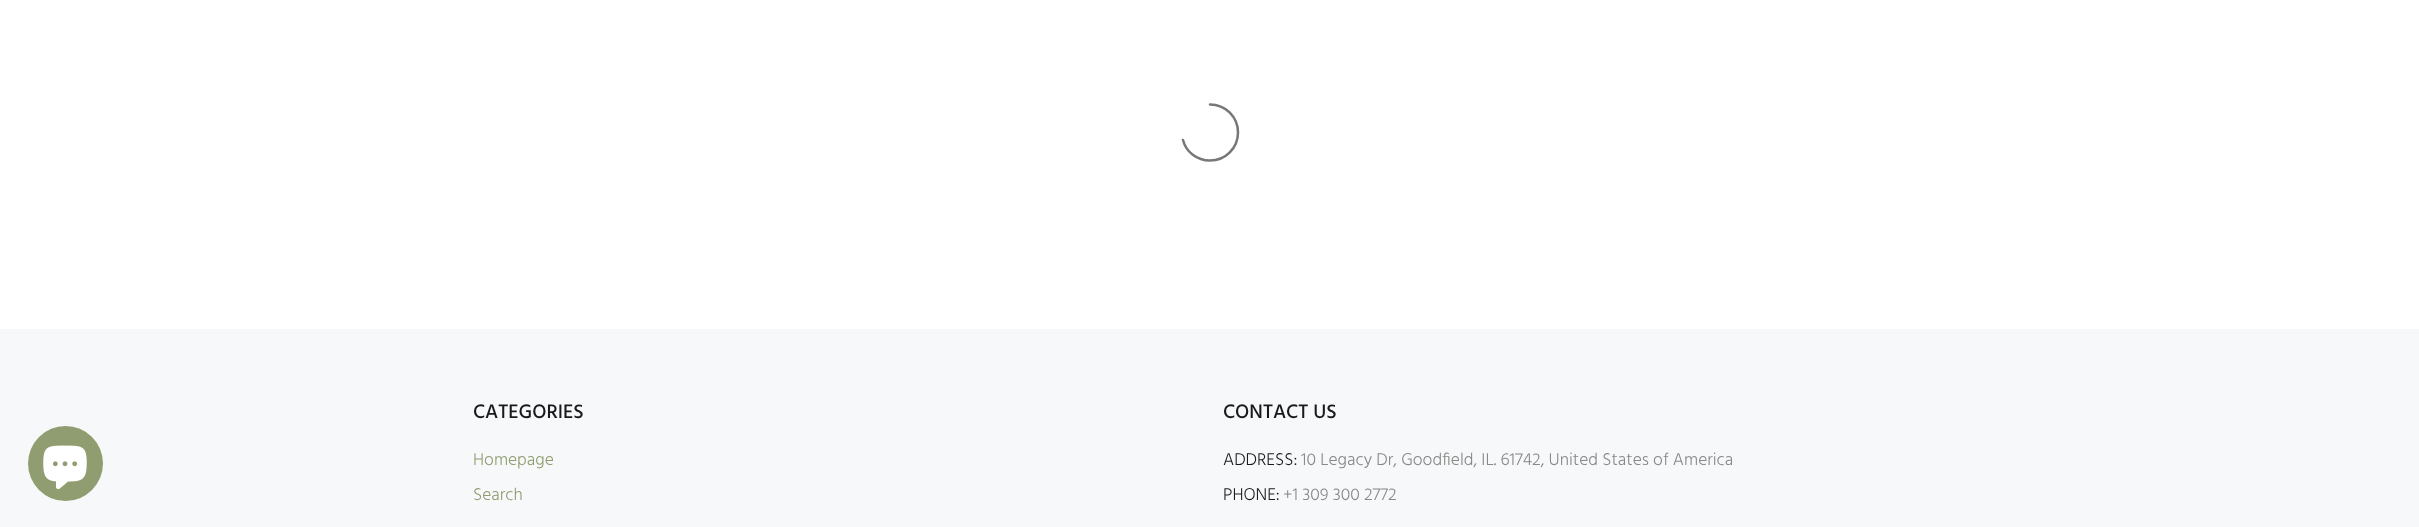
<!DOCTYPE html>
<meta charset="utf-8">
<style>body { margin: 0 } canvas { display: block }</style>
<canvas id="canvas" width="2419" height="527"></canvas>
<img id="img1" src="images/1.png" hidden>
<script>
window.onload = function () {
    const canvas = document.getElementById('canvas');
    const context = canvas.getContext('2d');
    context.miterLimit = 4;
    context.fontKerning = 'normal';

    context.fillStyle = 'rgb(255, 255, 255)';
    context.fillRect(0, 0, 2419, 527);
    context.beginPath();
    context.moveTo(1210, 104.5);
    context.bezierCurveTo(1225.5, 104.5, 1238, 117, 1238, 132.5);
    context.bezierCurveTo(1238, 148, 1225.5, 160.5, 1210, 160.5);
    context.bezierCurveTo(1197, 160.5, 1186, 152, 1183, 140);
    context.strokeStyle = 'rgb(119, 119, 119)';
    context.lineWidth = 2.5;
    context.lineCap = 'round';
    context.stroke();
    context.fillStyle = 'rgb(247, 248, 250)';
    context.fillRect(0, 329, 2419, 198);
    context.fillStyle = 'rgb(144, 157, 113)';
    context.beginPath();
    context.arc(65.5, 463.5, 37.5, 0, 2 * Math.PI);
    context.fill();
    context.drawImage(document.getElementById('img1'), 43, 445, 44, 45);
    context.font = '500 20px Hind';
    context.fillStyle = 'rgb(25, 25, 25)';
    context.fillText('CATEGORIES', 473, 418);
    context.font = '300 17.5px Hind';
    context.fillStyle = 'rgb(144, 157, 113)';
    context.fillText('Homepage', 473, 465);
    context.fillText('Search', 473, 500);
    context.font = '500 20px Hind';
    context.fillStyle = 'rgb(25, 25, 25)';
    context.fillText('CONTACT US', 1223, 418);
    context.font = '300 17.5px Hind';
    context.fillText('ADDRESS:', 1223, 465);
    context.fillStyle = 'rgb(136, 136, 136)';
    context.fillText('10 Legacy Dr, Goodfield, IL. 61742, United States of America', 1301, 465);
    context.fillStyle = 'rgb(25, 25, 25)';
    context.fillText('PHONE:', 1223, 500);
    context.fillStyle = 'rgb(136, 136, 136)';
    context.fillText('+1 309 300 2772', 1283, 500);
};
</script>
